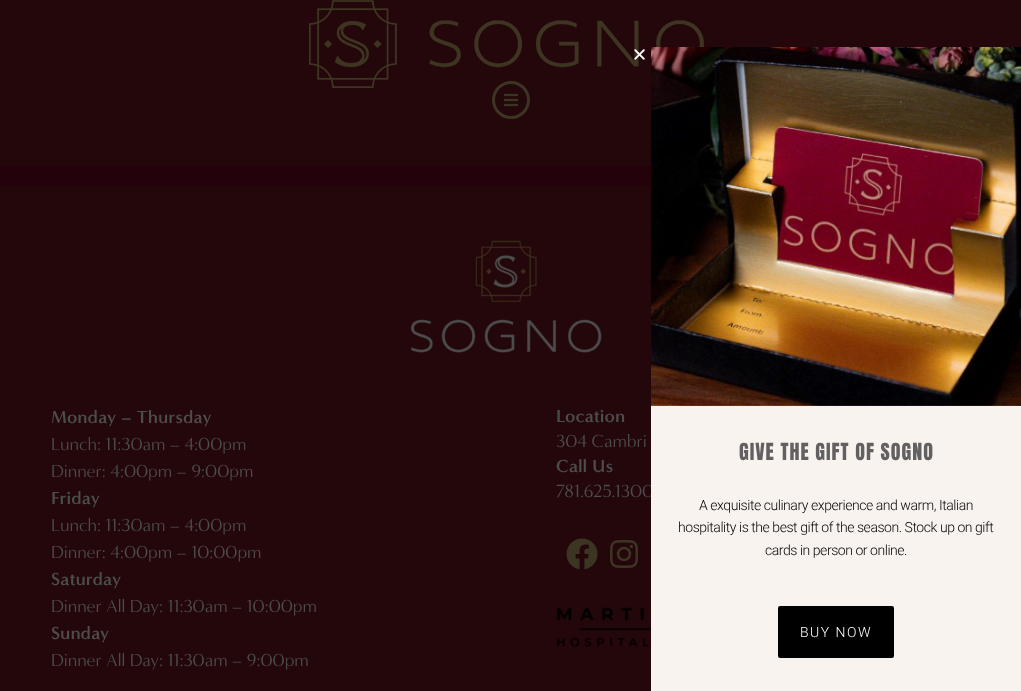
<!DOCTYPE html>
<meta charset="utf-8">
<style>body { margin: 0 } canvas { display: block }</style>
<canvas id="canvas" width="1021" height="691"></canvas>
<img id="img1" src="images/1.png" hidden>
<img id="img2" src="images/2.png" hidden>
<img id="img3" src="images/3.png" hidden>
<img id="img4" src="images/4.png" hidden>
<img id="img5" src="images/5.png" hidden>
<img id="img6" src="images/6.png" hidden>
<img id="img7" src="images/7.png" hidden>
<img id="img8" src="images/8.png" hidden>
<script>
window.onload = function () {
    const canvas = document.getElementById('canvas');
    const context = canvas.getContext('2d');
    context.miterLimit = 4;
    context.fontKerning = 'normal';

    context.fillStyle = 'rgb(36, 2, 12)';
    context.fillRect(0, 0, 1021, 691);
    context.fillStyle = 'rgb(36, 7, 11)';
    context.fillRect(0, 0, 1021, 166);
    context.drawImage(document.getElementById('img1'), 309, 0, 395, 88);
    context.beginPath();
    context.arc(511, 100, 17.5, 0, 2 * Math.PI);
    context.strokeStyle = 'rgb(60, 53, 35)';
    context.lineWidth = 3;
    context.stroke();
    context.drawImage(document.getElementById('img2'), 504, 93, 14, 14);
    context.fillRect(0, 186, 651, 505);
    context.drawImage(document.getElementById('img3'), 410, 240, 192, 113);
    context.drawImage(document.getElementById('img4'), 566, 538, 32, 32);
    context.drawImage(document.getElementById('img5'), 610, 540, 28, 28);
    context.drawImage(document.getElementById('img6'), 556, 607, 95, 40);
    context.drawImage(document.getElementById('img7'), 634, 49, 11, 11);
    context.font = 'bold 18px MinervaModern';
    context.fillStyle = 'rgb(77, 77, 77)';
    context.fillText('Monday – Thursday', 51, 423);
    context.font = '18px MinervaModern';
    context.fillText('Lunch: 11:30am – 4:00pm', 51, 450);
    context.fillText('Dinner: 4:00pm – 9:00pm', 51, 477);
    context.font = 'bold 18px MinervaModern';
    context.fillText('Friday', 51, 504);
    context.font = '18px MinervaModern';
    context.fillText('Lunch: 11:30am – 4:00pm', 51, 531);
    context.fillText('Dinner: 4:00pm – 10:00pm', 51, 558);
    context.font = 'bold 18px MinervaModern';
    context.fillText('Saturday', 51, 585);
    context.font = '18px MinervaModern';
    context.fillText('Dinner All Day: 11:30am – 10:00pm', 51, 612);
    context.font = 'bold 18px MinervaModern';
    context.fillText('Sunday', 51, 639);
    context.font = '18px MinervaModern';
    context.fillText('Dinner All Day: 11:30am – 9:00pm', 51, 666);
    context.font = 'bold 18px MinervaModern';
    context.fillText('Location', 556, 422);
    context.font = '18px MinervaModern';
    context.fillText('304 Cambri', 556, 447);
    context.font = 'bold 18px MinervaModern';
    context.fillText('Call Us', 556, 472);
    context.font = '18px MinervaModern';
    context.fillText('781.625.1300', 556, 497);
    context.fillStyle = 'rgb(248, 243, 239)';
    context.fillRect(651, 405, 370, 286);
    context.drawImage(document.getElementById('img8'), 651, 47, 370, 359);
    context.letterSpacing = '1px';
    context.font = '20px Anton';
    context.fillStyle = 'rgb(98, 96, 96)';
    context.fillText('GIVE THE GIFT OF SOGNO', 739, 460);
    context.letterSpacing = '-0.45px';
    context.font = '300 14px Roboto';
    context.fillStyle = 'rgb(0, 0, 0)';
    context.fillText('A exquisite culinary experience and warm, Italian', 699, 510);
    context.fillText('hospitality is the best gift of the season. Stock up on gift', 678, 532);
    context.fillText('cards in person or online.', 765, 555);
    context.beginPath();
    context.roundRect(779, 607, 114, 50, 1);
    context.fill();
    context.strokeStyle = 'rgb(0, 0, 0)';
    context.lineWidth = 2;
    context.stroke();
    context.letterSpacing = '1.5px';
    context.fillStyle = 'rgb(255, 255, 255)';
    context.fillText('BUY NOW', 800, 637);
};
</script>
